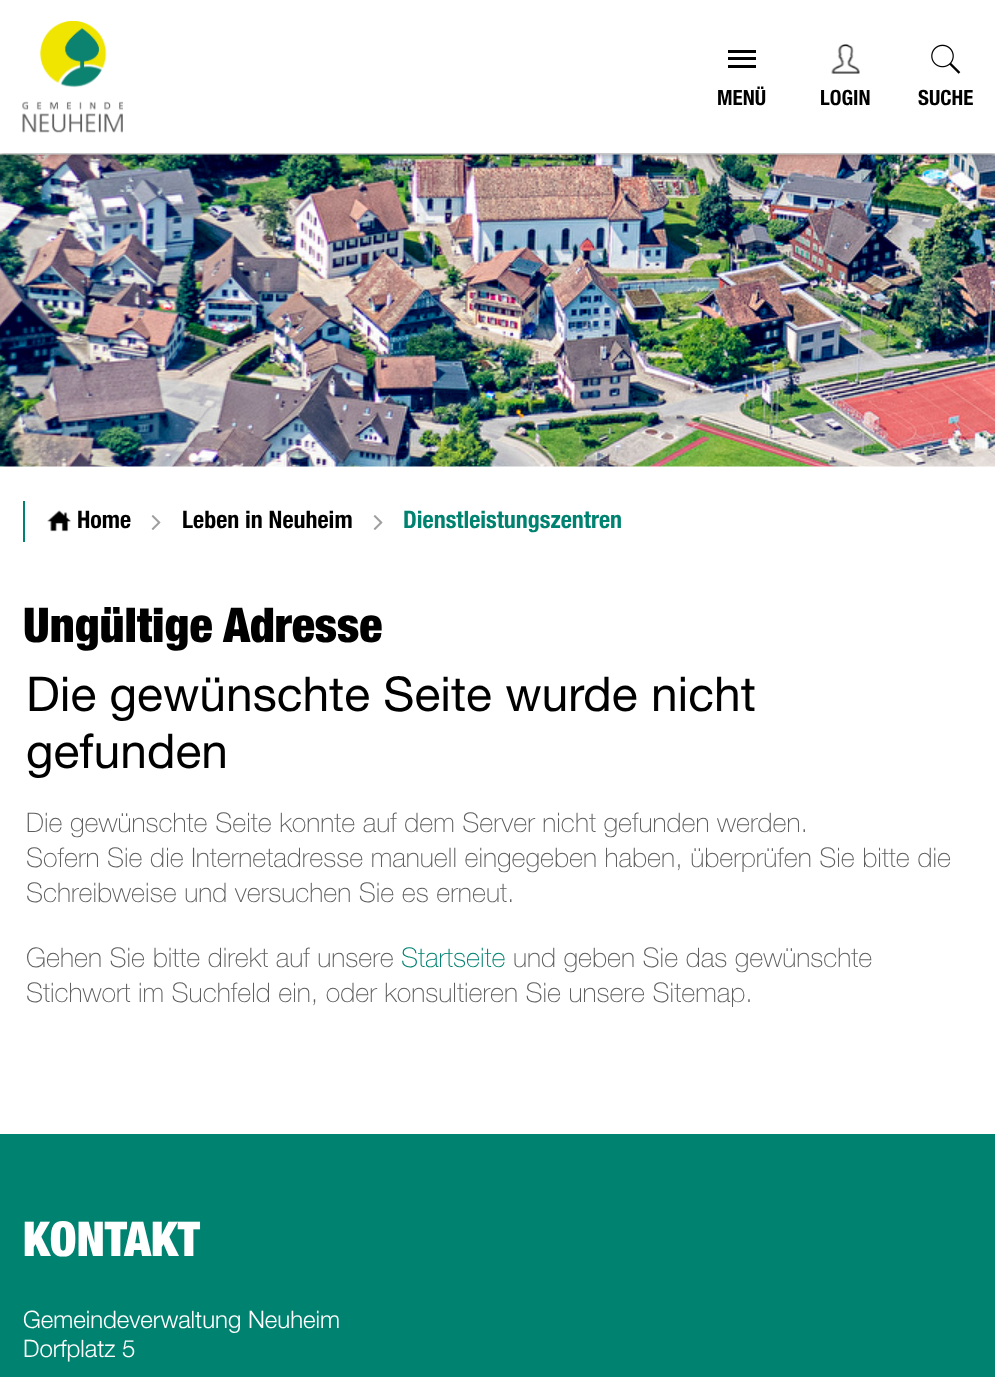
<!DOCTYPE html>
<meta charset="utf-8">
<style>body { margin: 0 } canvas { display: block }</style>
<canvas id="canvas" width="995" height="1377"></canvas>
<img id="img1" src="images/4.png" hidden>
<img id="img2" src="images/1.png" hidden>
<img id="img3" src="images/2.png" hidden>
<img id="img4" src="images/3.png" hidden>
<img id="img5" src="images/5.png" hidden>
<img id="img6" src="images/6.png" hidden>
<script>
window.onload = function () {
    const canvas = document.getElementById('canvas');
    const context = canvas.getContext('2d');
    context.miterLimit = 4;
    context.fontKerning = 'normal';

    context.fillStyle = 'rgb(255, 255, 255)';
    context.fillRect(0, 0, 995, 1377);
    context.drawImage(document.getElementById('img1'), 0, 154, 995, 313);
    context.save();
    context.beginPath();
    context.rect(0, 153, 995, 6);
    context.clip();
    context.fillStyle = 'rgba(0, 0, 0, 0.25)';
    context.filter = 'blur(2px)';
    context.beginPath();
    context.rect(0, 3, 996, 153);
    context.fill();
    context.filter = 'none';
    context.restore();
    context.drawImage(document.getElementById('img2'), 22, 21, 101, 112);
    context.fillStyle = 'rgb(0, 0, 0)';
    context.fillRect(728, 50, 28, 3);
    context.fillRect(728, 57, 28, 3);
    context.fillRect(728, 65, 28, 3);
    context.drawImage(document.getElementById('img3'), 831, 44, 29, 30);
    context.drawImage(document.getElementById('img4'), 931, 44, 30, 30);
    context.fillStyle = 'rgb(0, 130, 112)';
    context.fillRect(23, 501, 2, 41);
    context.drawImage(document.getElementById('img5'), 47, 510, 24, 22);
    context.drawImage(document.getElementById('img6'), 151, 515, 10, 15);
    context.drawImage(document.getElementById('img6'), 373, 515, 10, 15);
    context.fillRect(0, 1134, 995, 243);
    context.font = 'bold 21px Helvetica Neue';
    context.fillStyle = 'rgb(0, 0, 0)';
    context.fillText('MENÜ', 717, 105);
    context.fillText('LOGIN', 820, 105);
    context.fillText('SUCHE', 918, 105);
    context.font = 'bold 24px Helvetica Neue';
    context.fillText('Home', 77, 528);
    context.fillText('Leben in Neuheim', 182, 528);
    context.fillStyle = 'rgb(0, 130, 112)';
    context.fillText('Dienstleistungszentren', 403, 528);
    context.font = '900 48px Helvetica Neue';
    context.fillStyle = 'rgb(0, 0, 0)';
    context.fillText('Ungültige Adresse', 23, 642);
    context.font = '48px Helvetica Neue';
    context.fillText('Die gewünschte Seite wurde nicht', 26, 711);
    context.fillText('gefunden', 26, 768);
    context.font = '100 27px Helvetica Neue';
    context.fillStyle = 'rgb(94, 94, 94)';
    context.fillText('Die gewünschte Seite konnte auf dem Server nicht gefunden werden.', 26, 832);
    context.fillText('Sofern Sie die Internetadresse manuell eingegeben haben, überprüfen Sie bitte die', 26, 867);
    context.fillText('Schreibweise und versuchen Sie es erneut.', 26, 902);
    context.fillText('Gehen Sie bitte direkt auf unsere', 26, 967);
    context.fillStyle = 'rgb(0, 130, 112)';
    context.fillText('Startseite', 401, 967);
    context.fillStyle = 'rgb(94, 94, 94)';
    context.fillText('und geben Sie das gewünschte', 513, 967);
    context.fillText('Stichwort im Suchfeld ein, oder konsultieren Sie unsere Sitemap.', 26, 1002);
    context.font = '900 48px Helvetica Neue';
    context.fillStyle = 'rgb(255, 255, 255)';
    context.fillText('KONTAKT', 23, 1256);
    context.font = '300 24px Helvetica Neue';
    context.fillText('Gemeindeverwaltung Neuheim', 23, 1328);
    context.fillText('Dorfplatz 5', 23, 1357);
};
</script>
